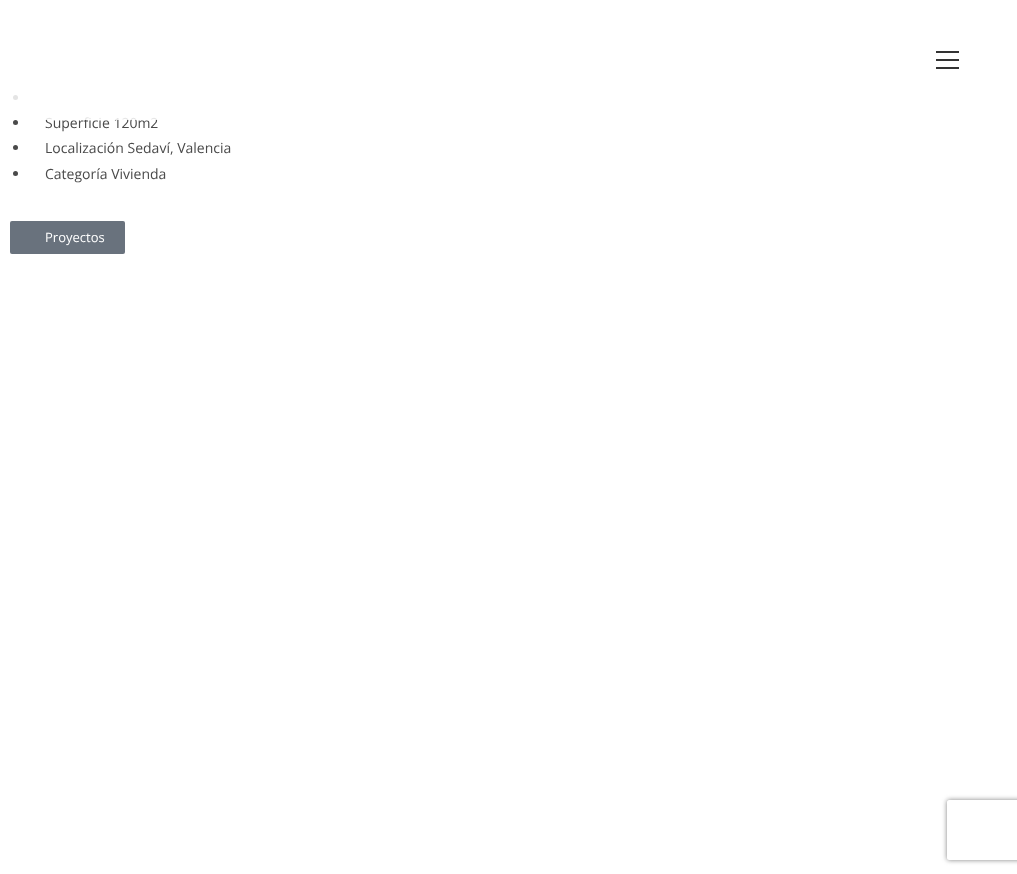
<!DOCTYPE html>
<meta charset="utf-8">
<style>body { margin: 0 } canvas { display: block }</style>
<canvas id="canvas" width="1017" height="874"></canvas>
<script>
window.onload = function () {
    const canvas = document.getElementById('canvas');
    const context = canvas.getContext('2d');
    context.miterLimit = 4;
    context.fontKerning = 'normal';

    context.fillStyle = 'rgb(255, 255, 255)';
    context.fillRect(0, 0, 1017, 874);
    context.fillStyle = 'rgb(51, 51, 51)';
    context.fillRect(936, 59, 23, 2);
    context.fillRect(936, 51, 23, 2);
    context.fillRect(936, 67, 23, 2);
    context.fillStyle = 'rgb(74, 74, 74)';
    context.beginPath();
    context.arc(15.5, 97.5, 2.5, 0, 2 * Math.PI);
    context.fill();
    context.beginPath();
    context.arc(15.5, 122.5, 2.5, 0, 2 * Math.PI);
    context.fill();
    context.beginPath();
    context.arc(15.5, 147.5, 2.5, 0, 2 * Math.PI);
    context.fill();
    context.beginPath();
    context.arc(15.5, 173.5, 2.5, 0, 2 * Math.PI);
    context.fill();
    context.fillStyle = 'rgb(105, 114, 125)';
    context.beginPath();
    context.roundRect(10, 221, 115, 33, 2);
    context.fill();
    context.save();
    context.beginPath();
    context.moveTo(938, 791);
    context.lineTo(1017, 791);
    context.lineTo(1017, 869);
    context.lineTo(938, 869);
    context.closePath();
    context.moveTo(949, 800);
    context.lineTo(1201, 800);
    context.bezierCurveTo(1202, 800, 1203, 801, 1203, 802);
    context.lineTo(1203, 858);
    context.bezierCurveTo(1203, 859, 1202, 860, 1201, 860);
    context.lineTo(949, 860);
    context.bezierCurveTo(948, 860, 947, 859, 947, 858);
    context.lineTo(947, 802);
    context.bezierCurveTo(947, 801, 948, 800, 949, 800);
    context.closePath();
    context.clip('evenodd');
    context.fillStyle = 'rgb(128, 128, 128)';
    context.filter = 'blur(2.5px)';
    context.beginPath();
    context.roundRect(947, 800, 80, 60, 2);
    context.fill();
    context.filter = 'none';
    context.restore();
    context.font = '14px Open Sans';
    context.fillStyle = 'rgb(74, 74, 74)';
    context.fillText('Superficie 120m2', 45, 128);
    context.fillStyle = 'rgba(255, 255, 255, 0.85)';
    context.fillRect(13, 95, 144, 25);
    context.fillStyle = 'rgb(74, 74, 74)';
    context.fillText('Localización Sedaví, Valencia', 45, 153);
    context.fillText('Categoría Vivienda', 45, 179);
    context.font = '13px Open Sans';
    context.fillStyle = 'rgb(255, 255, 255)';
    context.fillText('Proyectos', 45, 242);
};
</script>
